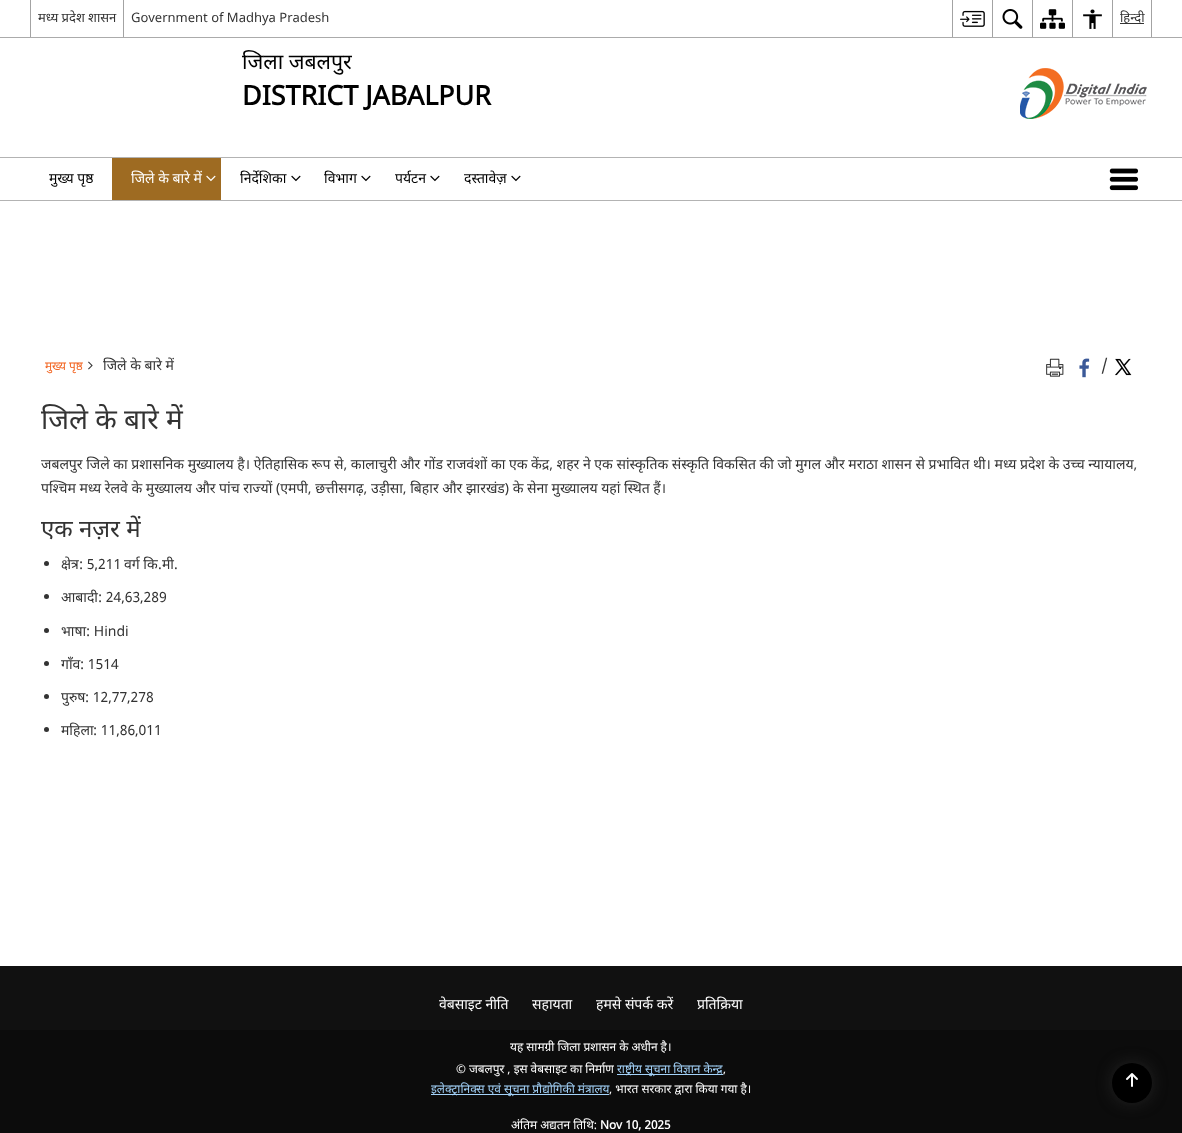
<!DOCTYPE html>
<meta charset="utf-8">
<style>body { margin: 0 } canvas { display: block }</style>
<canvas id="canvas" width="1182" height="1133"></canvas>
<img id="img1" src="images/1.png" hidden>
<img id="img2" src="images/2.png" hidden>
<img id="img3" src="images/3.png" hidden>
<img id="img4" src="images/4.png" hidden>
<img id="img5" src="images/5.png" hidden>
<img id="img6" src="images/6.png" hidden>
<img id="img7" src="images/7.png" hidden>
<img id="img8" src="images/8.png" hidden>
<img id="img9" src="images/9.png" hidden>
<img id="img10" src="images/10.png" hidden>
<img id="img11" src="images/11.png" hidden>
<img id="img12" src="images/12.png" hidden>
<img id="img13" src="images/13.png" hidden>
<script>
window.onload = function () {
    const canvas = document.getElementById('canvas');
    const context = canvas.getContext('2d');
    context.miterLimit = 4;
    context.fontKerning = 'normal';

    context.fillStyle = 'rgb(255, 255, 255)';
    context.fillRect(0, 0, 1182, 1133);
    context.fillStyle = 'rgb(171, 171, 171)';
    context.fillRect(0, 37, 1182, 1);
    context.fillStyle = 'rgb(163, 163, 163)';
    context.fillRect(30, 0, 1, 37);
    context.fillRect(123, 0, 1, 37);
    context.fillRect(952, 0, 1, 37);
    context.drawImage(document.getElementById('img1'), 960, 10, 25, 17);
    context.fillRect(992, 0, 1, 37);
    context.drawImage(document.getElementById('img2'), 1002, 9, 21, 20);
    context.fillRect(1032, 0, 1, 37);
    context.drawImage(document.getElementById('img3'), 1040, 9, 25, 20);
    context.fillRect(1072, 0, 1, 37);
    context.drawImage(document.getElementById('img4'), 1083, 9, 19, 20);
    context.fillRect(1151, 0, 1, 37);
    context.fillRect(1112, 0, 1, 37);
    context.fillStyle = 'rgb(51, 51, 51)';
    context.fillRect(1120, 23, 24, 1);
    context.drawImage(document.getElementById('img5'), 1020, 68, 127, 51);
    context.fillStyle = 'rgb(179, 179, 179)';
    context.fillRect(0, 157, 1182, 1);
    context.fillRect(0, 200, 1182, 1);
    context.fillStyle = 'rgb(158, 107, 34)';
    context.fillRect(112, 158, 109, 42);
    context.drawImage(document.getElementById('img6'), 206, 175, 10, 7);
    context.drawImage(document.getElementById('img7'), 291, 175, 10, 7);
    context.drawImage(document.getElementById('img7'), 361, 175, 10, 7);
    context.drawImage(document.getElementById('img7'), 430, 175, 10, 7);
    context.drawImage(document.getElementById('img7'), 511, 175, 10, 7);
    context.drawImage(document.getElementById('img8'), 1109, 168, 30, 23);
    context.drawImage(document.getElementById('img9'), 88, 361, 5, 9);
    context.drawImage(document.getElementById('img10'), 1046, 358, 18, 19);
    context.drawImage(document.getElementById('img11'), 1079, 358, 11, 20);
    context.drawImage(document.getElementById('img12'), 1115, 358, 17, 18);
    context.fillStyle = 'rgb(51, 51, 51)';
    context.beginPath();
    context.arc(46.5, 563.5, 2.5, 0, 2 * Math.PI);
    context.fill();
    context.beginPath();
    context.arc(46.5, 596.5, 2.5, 0, 2 * Math.PI);
    context.fill();
    context.beginPath();
    context.arc(46.5, 630.5, 2.5, 0, 2 * Math.PI);
    context.fill();
    context.beginPath();
    context.arc(46.5, 663.5, 2.5, 0, 2 * Math.PI);
    context.fill();
    context.beginPath();
    context.arc(46.5, 696.5, 2.5, 0, 2 * Math.PI);
    context.fill();
    context.beginPath();
    context.arc(46.5, 729.5, 2.5, 0, 2 * Math.PI);
    context.fill();
    context.fillStyle = 'rgb(17, 17, 17)';
    context.fillRect(0, 966, 1182, 64);
    context.fillStyle = 'rgb(12, 12, 12)';
    context.fillRect(0, 1030, 1182, 103);
    context.fillStyle = 'rgb(163, 210, 249)';
    context.fillRect(617, 1074, 106, 1);
    context.fillRect(431, 1094, 178, 1);
    context.fillStyle = 'rgb(60, 60, 60)';
    context.filter = 'blur(9.5px)';
    context.beginPath();
    context.roundRect(1117, 1068, 30, 30, 15);
    context.fill();
    context.filter = 'none';
    context.fillStyle = 'rgb(0, 0, 0)';
    context.beginPath();
    context.arc(1132, 1083, 20, 0, 2 * Math.PI);
    context.fill();
    context.drawImage(document.getElementById('img13'), 1126, 1073, 12, 14);
    context.font = '13px Noto Sans';
    context.fillStyle = 'rgb(51, 51, 51)';
    context.fillText('मध्य प्रदेश शासन', 38, 22);
    context.font = '13px "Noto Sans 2"';
    context.fillText('Government of Madhya Pradesh', 131, 22);
    context.font = '13px Noto Sans';
    context.fillText('हिन्दी', 1120, 22);
    context.font = '21.25px Noto Sans';
    context.fillStyle = 'rgb(0, 0, 0)';
    context.fillText('जिला जबलपुर', 242, 69);
    context.font = 'bold 26.9px Noto Sans';
    context.fillText('DISTRICT JABALPUR', 242, 105);
    context.font = '14px Noto Sans';
    context.fillText('मुख्य पृष्ठ', 49, 183);
    context.fillStyle = 'rgb(255, 255, 255)';
    context.fillText('जिले के बारे में', 131, 183);
    context.fillStyle = 'rgb(0, 0, 0)';
    context.fillText('निर्देशिका', 240, 183);
    context.fillText('विभाग', 324, 183);
    context.fillText('पर्यटन', 395, 183);
    context.fillText('दस्तावेज़', 464, 183);
    context.font = '11.9px Noto Sans';
    context.fillStyle = 'rgb(242, 101, 34)';
    context.fillText('मुख्य पृष्ठ', 45, 370);
    context.font = '14px Noto Sans';
    context.fillStyle = 'rgb(51, 51, 51)';
    context.fillText('जिले के बारे में', 103, 370);
    context.font = '16px "Noto Sans 2"';
    context.fillText('/', 1101, 371);
    context.font = '28px Noto Sans';
    context.fillText('जिले के बारे में', 41, 429);
    context.font = '14px Noto Sans';
    context.fillText('जबलपुर जिले का प्रशासनिक मुख्यालय है। ऐतिहासिक रूप से, कालाचुरी और गोंड राजवंशों का एक केंद्र, शहर ने एक सांस्कृतिक संस्कृति विकसित की जो मुगल और मराठा शासन से प्रभावित थी। मध्य प्रदेश के उच्च न्यायालय,', 41, 469);
    context.fillText('पश्चिम मध्य रेलवे के मुख्यालय और पांच राज्यों (एमपी, छत्तीसगढ़, उड़ीसा, बिहार और झारखंड) के सेना मुख्यालय यहां स्थित हैं।', 41, 493);
    context.font = '24px Noto Sans';
    context.fillText('एक नज़र में', 41, 537);
    context.font = '14px Noto Sans';
    context.fillText('क्षेत्र', 61, 569);
    context.font = '14px "Noto Sans 2"';
    context.fillText(': 5,211', 79, 569);
    context.font = '14px Noto Sans';
    context.fillText('वर्ग कि', 124, 569);
    context.font = '14px "Noto Sans 2"';
    context.fillText('.', 158, 569);
    context.font = '14px Noto Sans';
    context.fillText('मी', 162, 569);
    context.font = '14px "Noto Sans 2"';
    context.fillText('.', 174, 569);
    context.font = '14px Noto Sans';
    context.fillText('आबादी', 61, 602);
    context.font = '14px "Noto Sans 2"';
    context.fillText(': 24,63,289', 98, 602);
    context.font = '14px Noto Sans';
    context.fillText('भाषा', 61, 636);
    context.font = '14px "Noto Sans 2"';
    context.fillText(': Hindi', 86, 636);
    context.font = '14px Noto Sans';
    context.fillText('गाँव', 61, 669);
    context.font = '14px "Noto Sans 2"';
    context.fillText(': 1514', 80, 669);
    context.font = '14px Noto Sans';
    context.fillText('पुरुष', 61, 702);
    context.font = '14px "Noto Sans 2"';
    context.fillText(': 12,77,278', 85, 702);
    context.font = '14px Noto Sans';
    context.fillText('महिला', 61, 735);
    context.font = '14px "Noto Sans 2"';
    context.fillText(': 11,86,011', 93, 735);
    context.font = '14px Noto Sans';
    context.fillStyle = 'rgb(255, 255, 255)';
    context.fillText('वेबसाइट नीति', 439, 1009);
    context.fillText('सहायता', 532, 1009);
    context.fillText('हमसे संपर्क करें', 596, 1009);
    context.fillText('प्रतिक्रिया', 697, 1009);
    context.font = '11.9px Noto Sans';
    context.fillText('यह सामग्री जिला प्रशासन के अधीन है।', 510, 1051);
    context.fillText('© जबलपुर , इस वेबसाइट का निर्माण', 456, 1073);
    context.fillStyle = 'rgb(163, 210, 249)';
    context.fillText('राष्ट्रीय सूचना विज्ञान केन्द्र', 617, 1073);
    context.font = '11.9px "Noto Sans 2"';
    context.fillStyle = 'rgb(255, 255, 255)';
    context.fillText(',', 723, 1073);
    context.font = '11.9px Noto Sans';
    context.fillStyle = 'rgb(163, 210, 249)';
    context.fillText('इलेक्ट्रानिक्स एवं सूचना प्रौद्योगिकी मंत्रालय', 431, 1093);
    context.fillStyle = 'rgb(255, 255, 255)';
    context.fillText(', भारत सरकार द्वारा किया गया है।', 609, 1093);
    context.fillText('अंतिम अद्यतन तिथि:', 511, 1129);
    context.font = 'bold 11.9px Noto Sans';
    context.fillText('Nov 10, 2025', 600, 1129);
};
</script>
